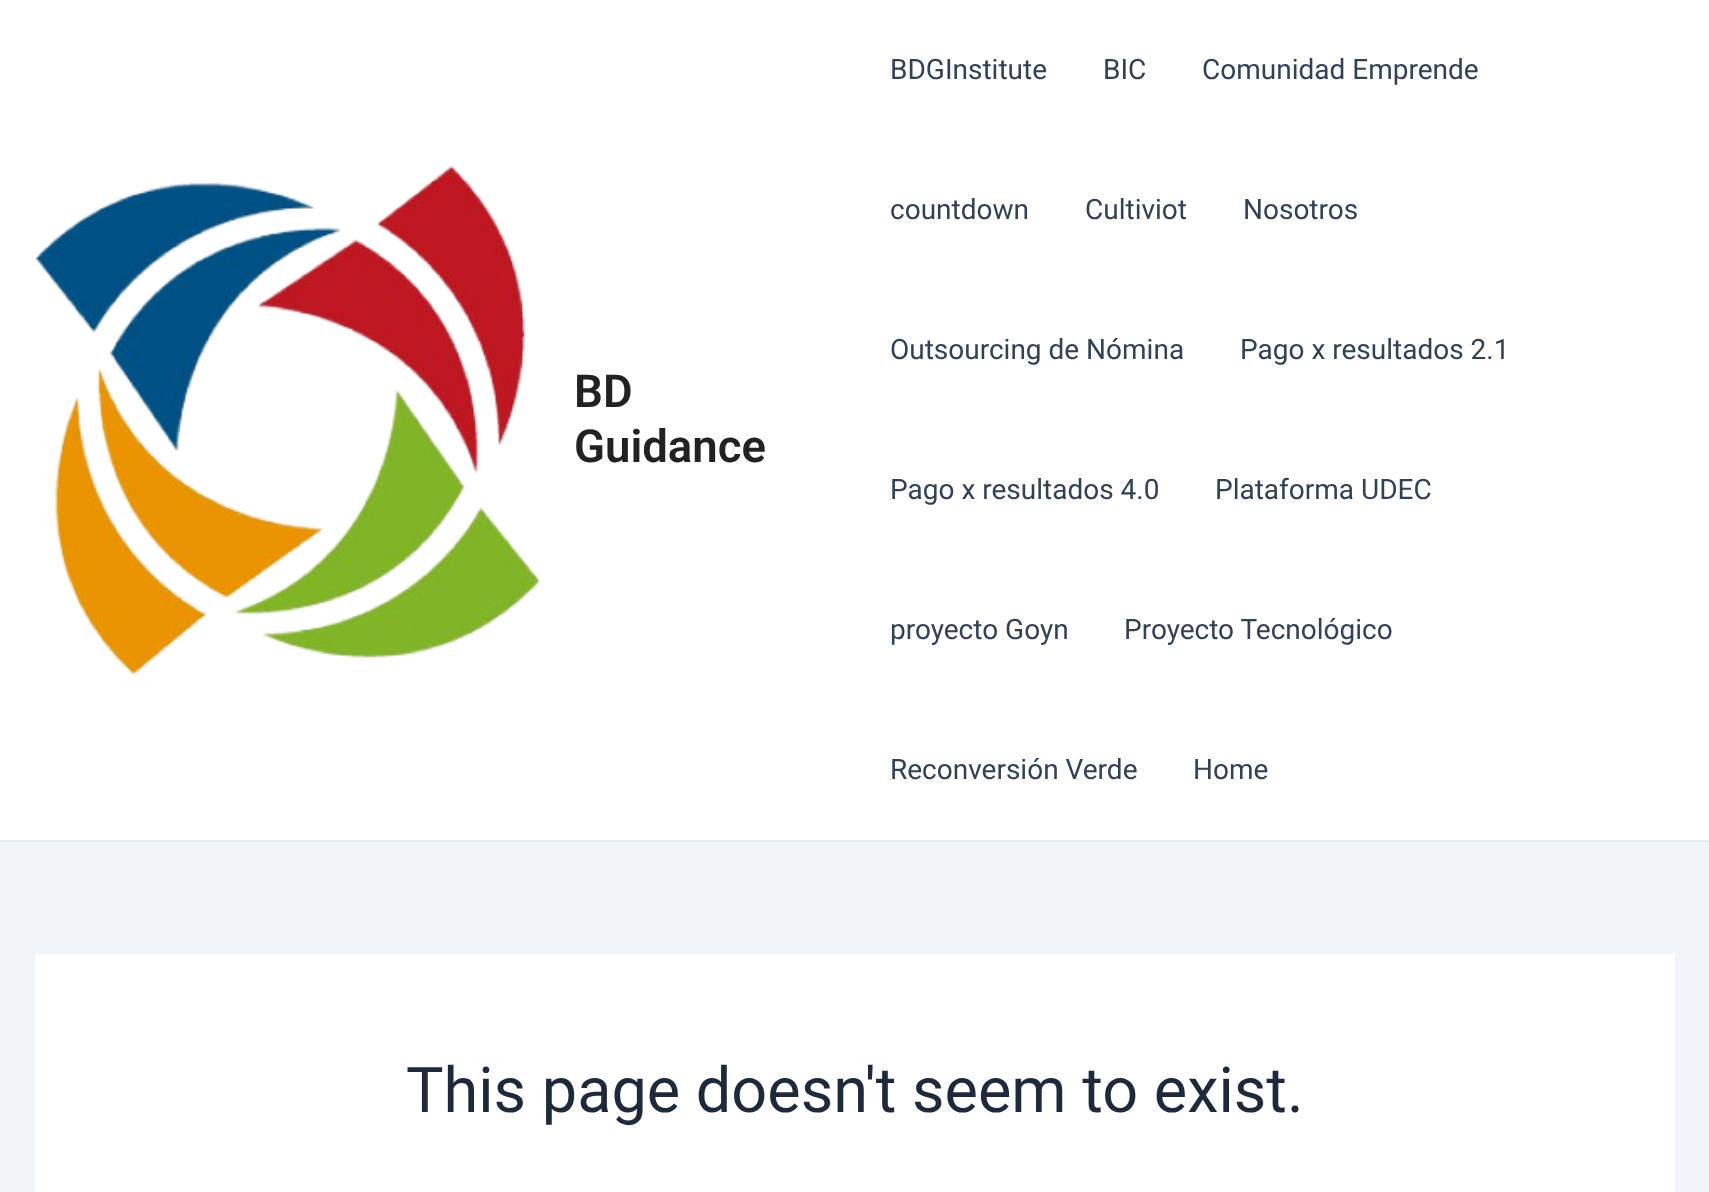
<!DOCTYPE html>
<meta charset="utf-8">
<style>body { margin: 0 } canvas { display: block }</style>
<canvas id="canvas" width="1709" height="1192"></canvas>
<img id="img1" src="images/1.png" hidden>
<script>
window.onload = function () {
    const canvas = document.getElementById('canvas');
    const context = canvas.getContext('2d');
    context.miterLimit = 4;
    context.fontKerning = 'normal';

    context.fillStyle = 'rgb(240, 245, 250)';
    context.fillRect(0, 0, 1709, 1192);
    context.fillStyle = 'rgb(255, 255, 255)';
    context.fillRect(0, 0, 1709, 840);
    context.fillStyle = 'rgb(234, 234, 234)';
    context.fillRect(0, 840, 1709, 2);
    context.drawImage(document.getElementById('img1'), 35, 165, 506, 511);
    context.fillStyle = 'rgb(255, 255, 255)';
    context.fillRect(35, 954, 1640, 238);
    context.font = '600 45.5px Roboto';
    context.fillStyle = 'rgb(34, 34, 34)';
    context.fillText('BD', 574, 407);
    context.fillText('Guidance', 574, 462);
    context.font = '28px Roboto';
    context.fillStyle = 'rgb(51, 65, 85)';
    context.fillText('BDGInstitute', 890, 79);
    context.fillText('BIC', 1103, 79);
    context.fillText('Comunidad Emprende', 1202, 79);
    context.fillText('countdown', 890, 219);
    context.fillText('Cultiviot', 1085, 219);
    context.fillText('Nosotros', 1243, 219);
    context.fillText('Outsourcing de Nómina', 890, 359);
    context.fillText('Pago x resultados 2.1', 1240, 359);
    context.fillText('Pago x resultados 4.0', 890, 499);
    context.fillText('Plataforma UDEC', 1215, 499);
    context.fillText('proyecto Goyn', 890, 639);
    context.fillText('Proyecto Tecnológico', 1124, 639);
    context.fillText('Reconversión Verde', 890, 779);
    context.fillText('Home', 1193, 779);
    context.font = '63px Roboto';
    context.fillStyle = 'rgb(30, 41, 59)';
    context.fillText('This page doesn\'t seem to exist.', 406, 1112);
};
</script>
